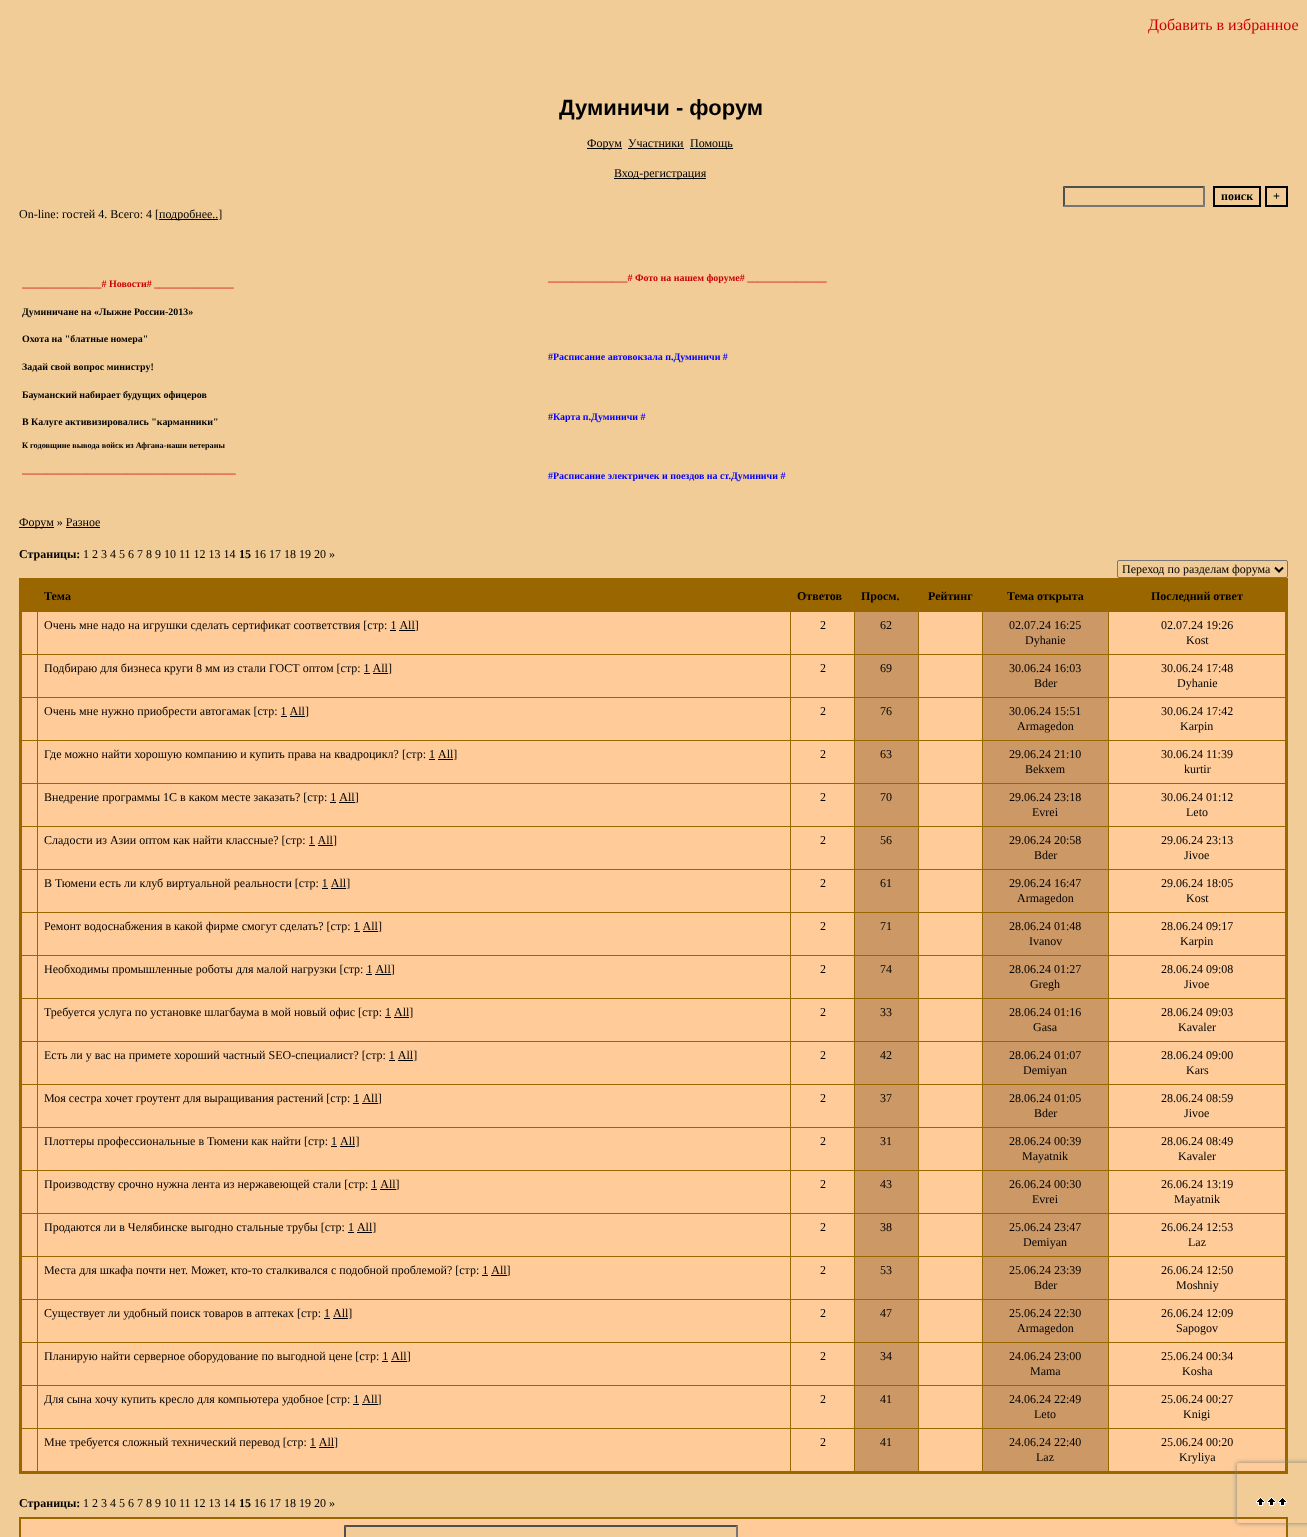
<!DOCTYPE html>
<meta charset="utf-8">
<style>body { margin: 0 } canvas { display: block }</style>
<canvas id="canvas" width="1307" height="1537"></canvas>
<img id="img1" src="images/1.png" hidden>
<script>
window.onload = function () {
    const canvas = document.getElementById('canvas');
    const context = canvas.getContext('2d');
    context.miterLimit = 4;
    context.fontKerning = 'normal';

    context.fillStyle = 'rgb(241, 204, 150)';
    context.fillRect(0, 0, 1307, 1537);
    context.fillStyle = 'rgb(0, 0, 0)';
    context.fillRect(587, 148, 35, 1);
    context.fillRect(628, 148, 56, 1);
    context.fillRect(690, 148, 43, 1);
    context.fillRect(614, 178, 92, 1);
    context.fillStyle = 'rgb(79, 79, 79)';
    context.beginPath();
    context.moveTo(1063, 186);
    context.lineTo(1205, 186);
    context.lineTo(1203, 188);
    context.lineTo(1065, 188);
    context.closePath();
    context.fill();
    context.fillStyle = 'rgb(118, 118, 118)';
    context.beginPath();
    context.moveTo(1205, 186);
    context.lineTo(1205, 207);
    context.lineTo(1203, 205);
    context.lineTo(1203, 188);
    context.closePath();
    context.fill();
    context.beginPath();
    context.moveTo(1205, 207);
    context.lineTo(1063, 207);
    context.lineTo(1065, 205);
    context.lineTo(1203, 205);
    context.closePath();
    context.fill();
    context.fillStyle = 'rgb(79, 79, 79)';
    context.beginPath();
    context.moveTo(1063, 207);
    context.lineTo(1063, 186);
    context.lineTo(1065, 188);
    context.lineTo(1065, 205);
    context.closePath();
    context.fill();
    context.strokeStyle = 'rgb(0, 0, 0)';
    context.lineWidth = 2;
    context.strokeRect(1214, 187, 46, 19);
    context.strokeRect(1266, 187, 21, 19);
    context.fillStyle = 'rgb(0, 0, 0)';
    context.fillRect(159, 219, 59, 1);
    context.fillRect(19, 527, 35, 1);
    context.fillRect(66, 527, 34, 1);
    context.beginPath();
    context.roundRect(1117.5, 560.5, 170, 17, 1.5);
    context.strokeStyle = 'rgb(118, 118, 118)';
    context.lineWidth = 1;
    context.stroke();
    context.beginPath();
    context.moveTo(1275, 567.5);
    context.lineTo(1279, 571.5);
    context.lineTo(1283, 567.5);
    context.strokeStyle = 'rgb(0, 0, 0)';
    context.lineWidth = 2;
    context.stroke();
    context.fillStyle = 'rgb(153, 102, 0)';
    context.fillRect(19, 578, 1269, 896);
    context.fillStyle = 'rgb(255, 204, 153)';
    context.fillRect(22, 612, 15, 42);
    context.fillRect(38, 612, 752, 42);
    context.fillStyle = 'rgb(0, 0, 0)';
    context.fillRect(390, 630, 6, 1);
    context.fillRect(399, 630, 16, 1);
    context.fillStyle = 'rgb(255, 204, 153)';
    context.fillRect(791, 612, 63, 42);
    context.fillStyle = 'rgb(204, 153, 102)';
    context.fillRect(855, 612, 63, 42);
    context.fillStyle = 'rgb(255, 204, 153)';
    context.fillRect(919, 612, 63, 42);
    context.fillStyle = 'rgb(204, 153, 102)';
    context.fillRect(983, 612, 125, 42);
    context.fillStyle = 'rgb(255, 204, 153)';
    context.fillRect(1109, 612, 176, 42);
    context.fillRect(22, 655, 15, 42);
    context.fillRect(38, 655, 752, 42);
    context.fillStyle = 'rgb(0, 0, 0)';
    context.fillRect(364, 673, 6, 1);
    context.fillRect(373, 673, 15, 1);
    context.fillStyle = 'rgb(255, 204, 153)';
    context.fillRect(791, 655, 63, 42);
    context.fillStyle = 'rgb(204, 153, 102)';
    context.fillRect(855, 655, 63, 42);
    context.fillStyle = 'rgb(255, 204, 153)';
    context.fillRect(919, 655, 63, 42);
    context.fillStyle = 'rgb(204, 153, 102)';
    context.fillRect(983, 655, 125, 42);
    context.fillStyle = 'rgb(255, 204, 153)';
    context.fillRect(1109, 655, 176, 42);
    context.fillRect(22, 698, 15, 42);
    context.fillRect(38, 698, 752, 42);
    context.fillStyle = 'rgb(0, 0, 0)';
    context.fillRect(281, 716, 6, 1);
    context.fillRect(290, 716, 15, 1);
    context.fillStyle = 'rgb(255, 204, 153)';
    context.fillRect(791, 698, 63, 42);
    context.fillStyle = 'rgb(204, 153, 102)';
    context.fillRect(855, 698, 63, 42);
    context.fillStyle = 'rgb(255, 204, 153)';
    context.fillRect(919, 698, 63, 42);
    context.fillStyle = 'rgb(204, 153, 102)';
    context.fillRect(983, 698, 125, 42);
    context.fillStyle = 'rgb(255, 204, 153)';
    context.fillRect(1109, 698, 176, 42);
    context.fillRect(22, 741, 15, 42);
    context.fillRect(38, 741, 752, 42);
    context.fillStyle = 'rgb(0, 0, 0)';
    context.fillRect(429, 759, 6, 1);
    context.fillRect(438, 759, 15, 1);
    context.fillStyle = 'rgb(255, 204, 153)';
    context.fillRect(791, 741, 63, 42);
    context.fillStyle = 'rgb(204, 153, 102)';
    context.fillRect(855, 741, 63, 42);
    context.fillStyle = 'rgb(255, 204, 153)';
    context.fillRect(919, 741, 63, 42);
    context.fillStyle = 'rgb(204, 153, 102)';
    context.fillRect(983, 741, 125, 42);
    context.fillStyle = 'rgb(255, 204, 153)';
    context.fillRect(1109, 741, 176, 42);
    context.fillRect(22, 784, 15, 42);
    context.fillRect(38, 784, 752, 42);
    context.fillStyle = 'rgb(0, 0, 0)';
    context.fillRect(330, 802, 6, 1);
    context.fillRect(339, 802, 16, 1);
    context.fillStyle = 'rgb(255, 204, 153)';
    context.fillRect(791, 784, 63, 42);
    context.fillStyle = 'rgb(204, 153, 102)';
    context.fillRect(855, 784, 63, 42);
    context.fillStyle = 'rgb(255, 204, 153)';
    context.fillRect(919, 784, 63, 42);
    context.fillStyle = 'rgb(204, 153, 102)';
    context.fillRect(983, 784, 125, 42);
    context.fillStyle = 'rgb(255, 204, 153)';
    context.fillRect(1109, 784, 176, 42);
    context.fillRect(22, 827, 15, 42);
    context.fillRect(38, 827, 752, 42);
    context.fillStyle = 'rgb(0, 0, 0)';
    context.fillRect(309, 845, 6, 1);
    context.fillRect(318, 845, 15, 1);
    context.fillStyle = 'rgb(255, 204, 153)';
    context.fillRect(791, 827, 63, 42);
    context.fillStyle = 'rgb(204, 153, 102)';
    context.fillRect(855, 827, 63, 42);
    context.fillStyle = 'rgb(255, 204, 153)';
    context.fillRect(919, 827, 63, 42);
    context.fillStyle = 'rgb(204, 153, 102)';
    context.fillRect(983, 827, 125, 42);
    context.fillStyle = 'rgb(255, 204, 153)';
    context.fillRect(1109, 827, 176, 42);
    context.fillRect(22, 870, 15, 42);
    context.fillRect(38, 870, 752, 42);
    context.fillStyle = 'rgb(0, 0, 0)';
    context.fillRect(322, 888, 6, 1);
    context.fillRect(331, 888, 15, 1);
    context.fillStyle = 'rgb(255, 204, 153)';
    context.fillRect(791, 870, 63, 42);
    context.fillStyle = 'rgb(204, 153, 102)';
    context.fillRect(855, 870, 63, 42);
    context.fillStyle = 'rgb(255, 204, 153)';
    context.fillRect(919, 870, 63, 42);
    context.fillStyle = 'rgb(204, 153, 102)';
    context.fillRect(983, 870, 125, 42);
    context.fillStyle = 'rgb(255, 204, 153)';
    context.fillRect(1109, 870, 176, 42);
    context.fillRect(22, 913, 15, 42);
    context.fillRect(38, 913, 752, 42);
    context.fillStyle = 'rgb(0, 0, 0)';
    context.fillRect(354, 931, 6, 1);
    context.fillRect(363, 931, 15, 1);
    context.fillStyle = 'rgb(255, 204, 153)';
    context.fillRect(791, 913, 63, 42);
    context.fillStyle = 'rgb(204, 153, 102)';
    context.fillRect(855, 913, 63, 42);
    context.fillStyle = 'rgb(255, 204, 153)';
    context.fillRect(919, 913, 63, 42);
    context.fillStyle = 'rgb(204, 153, 102)';
    context.fillRect(983, 913, 125, 42);
    context.fillStyle = 'rgb(255, 204, 153)';
    context.fillRect(1109, 913, 176, 42);
    context.fillRect(22, 956, 15, 42);
    context.fillRect(38, 956, 752, 42);
    context.fillStyle = 'rgb(0, 0, 0)';
    context.fillRect(366, 974, 6, 1);
    context.fillRect(375, 974, 16, 1);
    context.fillStyle = 'rgb(255, 204, 153)';
    context.fillRect(791, 956, 63, 42);
    context.fillStyle = 'rgb(204, 153, 102)';
    context.fillRect(855, 956, 63, 42);
    context.fillStyle = 'rgb(255, 204, 153)';
    context.fillRect(919, 956, 63, 42);
    context.fillStyle = 'rgb(204, 153, 102)';
    context.fillRect(983, 956, 125, 42);
    context.fillStyle = 'rgb(255, 204, 153)';
    context.fillRect(1109, 956, 176, 42);
    context.fillRect(22, 999, 15, 42);
    context.fillRect(38, 999, 752, 42);
    context.fillStyle = 'rgb(0, 0, 0)';
    context.fillRect(385, 1017, 6, 1);
    context.fillRect(394, 1017, 15, 1);
    context.fillStyle = 'rgb(255, 204, 153)';
    context.fillRect(791, 999, 63, 42);
    context.fillStyle = 'rgb(204, 153, 102)';
    context.fillRect(855, 999, 63, 42);
    context.fillStyle = 'rgb(255, 204, 153)';
    context.fillRect(919, 999, 63, 42);
    context.fillStyle = 'rgb(204, 153, 102)';
    context.fillRect(983, 999, 125, 42);
    context.fillStyle = 'rgb(255, 204, 153)';
    context.fillRect(1109, 999, 176, 42);
    context.fillRect(22, 1042, 15, 42);
    context.fillRect(38, 1042, 752, 42);
    context.fillStyle = 'rgb(0, 0, 0)';
    context.fillRect(389, 1060, 6, 1);
    context.fillRect(398, 1060, 15, 1);
    context.fillStyle = 'rgb(255, 204, 153)';
    context.fillRect(791, 1042, 63, 42);
    context.fillStyle = 'rgb(204, 153, 102)';
    context.fillRect(855, 1042, 63, 42);
    context.fillStyle = 'rgb(255, 204, 153)';
    context.fillRect(919, 1042, 63, 42);
    context.fillStyle = 'rgb(204, 153, 102)';
    context.fillRect(983, 1042, 125, 42);
    context.fillStyle = 'rgb(255, 204, 153)';
    context.fillRect(1109, 1042, 176, 42);
    context.fillRect(22, 1085, 15, 42);
    context.fillRect(38, 1085, 752, 42);
    context.fillStyle = 'rgb(0, 0, 0)';
    context.fillRect(353, 1103, 6, 1);
    context.fillRect(362, 1103, 16, 1);
    context.fillStyle = 'rgb(255, 204, 153)';
    context.fillRect(791, 1085, 63, 42);
    context.fillStyle = 'rgb(204, 153, 102)';
    context.fillRect(855, 1085, 63, 42);
    context.fillStyle = 'rgb(255, 204, 153)';
    context.fillRect(919, 1085, 63, 42);
    context.fillStyle = 'rgb(204, 153, 102)';
    context.fillRect(983, 1085, 125, 42);
    context.fillStyle = 'rgb(255, 204, 153)';
    context.fillRect(1109, 1085, 176, 42);
    context.fillRect(22, 1128, 15, 42);
    context.fillRect(38, 1128, 752, 42);
    context.fillStyle = 'rgb(0, 0, 0)';
    context.fillRect(331, 1146, 6, 1);
    context.fillRect(340, 1146, 15, 1);
    context.fillStyle = 'rgb(255, 204, 153)';
    context.fillRect(791, 1128, 63, 42);
    context.fillStyle = 'rgb(204, 153, 102)';
    context.fillRect(855, 1128, 63, 42);
    context.fillStyle = 'rgb(255, 204, 153)';
    context.fillRect(919, 1128, 63, 42);
    context.fillStyle = 'rgb(204, 153, 102)';
    context.fillRect(983, 1128, 125, 42);
    context.fillStyle = 'rgb(255, 204, 153)';
    context.fillRect(1109, 1128, 176, 42);
    context.fillRect(22, 1171, 15, 42);
    context.fillRect(38, 1171, 752, 42);
    context.fillStyle = 'rgb(0, 0, 0)';
    context.fillRect(371, 1189, 6, 1);
    context.fillRect(380, 1189, 16, 1);
    context.fillStyle = 'rgb(255, 204, 153)';
    context.fillRect(791, 1171, 63, 42);
    context.fillStyle = 'rgb(204, 153, 102)';
    context.fillRect(855, 1171, 63, 42);
    context.fillStyle = 'rgb(255, 204, 153)';
    context.fillRect(919, 1171, 63, 42);
    context.fillStyle = 'rgb(204, 153, 102)';
    context.fillRect(983, 1171, 125, 42);
    context.fillStyle = 'rgb(255, 204, 153)';
    context.fillRect(1109, 1171, 176, 42);
    context.fillRect(22, 1214, 15, 42);
    context.fillRect(38, 1214, 752, 42);
    context.fillStyle = 'rgb(0, 0, 0)';
    context.fillRect(348, 1232, 6, 1);
    context.fillRect(357, 1232, 15, 1);
    context.fillStyle = 'rgb(255, 204, 153)';
    context.fillRect(791, 1214, 63, 42);
    context.fillStyle = 'rgb(204, 153, 102)';
    context.fillRect(855, 1214, 63, 42);
    context.fillStyle = 'rgb(255, 204, 153)';
    context.fillRect(919, 1214, 63, 42);
    context.fillStyle = 'rgb(204, 153, 102)';
    context.fillRect(983, 1214, 125, 42);
    context.fillStyle = 'rgb(255, 204, 153)';
    context.fillRect(1109, 1214, 176, 42);
    context.fillRect(22, 1257, 15, 42);
    context.fillRect(38, 1257, 752, 42);
    context.fillStyle = 'rgb(0, 0, 0)';
    context.fillRect(482, 1275, 6, 1);
    context.fillRect(491, 1275, 16, 1);
    context.fillStyle = 'rgb(255, 204, 153)';
    context.fillRect(791, 1257, 63, 42);
    context.fillStyle = 'rgb(204, 153, 102)';
    context.fillRect(855, 1257, 63, 42);
    context.fillStyle = 'rgb(255, 204, 153)';
    context.fillRect(919, 1257, 63, 42);
    context.fillStyle = 'rgb(204, 153, 102)';
    context.fillRect(983, 1257, 125, 42);
    context.fillStyle = 'rgb(255, 204, 153)';
    context.fillRect(1109, 1257, 176, 42);
    context.fillRect(22, 1300, 15, 42);
    context.fillRect(38, 1300, 752, 42);
    context.fillStyle = 'rgb(0, 0, 0)';
    context.fillRect(324, 1318, 6, 1);
    context.fillRect(333, 1318, 15, 1);
    context.fillStyle = 'rgb(255, 204, 153)';
    context.fillRect(791, 1300, 63, 42);
    context.fillStyle = 'rgb(204, 153, 102)';
    context.fillRect(855, 1300, 63, 42);
    context.fillStyle = 'rgb(255, 204, 153)';
    context.fillRect(919, 1300, 63, 42);
    context.fillStyle = 'rgb(204, 153, 102)';
    context.fillRect(983, 1300, 125, 42);
    context.fillStyle = 'rgb(255, 204, 153)';
    context.fillRect(1109, 1300, 176, 42);
    context.fillRect(22, 1343, 15, 42);
    context.fillRect(38, 1343, 752, 42);
    context.fillStyle = 'rgb(0, 0, 0)';
    context.fillRect(382, 1361, 6, 1);
    context.fillRect(391, 1361, 16, 1);
    context.fillStyle = 'rgb(255, 204, 153)';
    context.fillRect(791, 1343, 63, 42);
    context.fillStyle = 'rgb(204, 153, 102)';
    context.fillRect(855, 1343, 63, 42);
    context.fillStyle = 'rgb(255, 204, 153)';
    context.fillRect(919, 1343, 63, 42);
    context.fillStyle = 'rgb(204, 153, 102)';
    context.fillRect(983, 1343, 125, 42);
    context.fillStyle = 'rgb(255, 204, 153)';
    context.fillRect(1109, 1343, 176, 42);
    context.fillRect(22, 1386, 15, 42);
    context.fillRect(38, 1386, 752, 42);
    context.fillStyle = 'rgb(0, 0, 0)';
    context.fillRect(353, 1404, 6, 1);
    context.fillRect(362, 1404, 16, 1);
    context.fillStyle = 'rgb(255, 204, 153)';
    context.fillRect(791, 1386, 63, 42);
    context.fillStyle = 'rgb(204, 153, 102)';
    context.fillRect(855, 1386, 63, 42);
    context.fillStyle = 'rgb(255, 204, 153)';
    context.fillRect(919, 1386, 63, 42);
    context.fillStyle = 'rgb(204, 153, 102)';
    context.fillRect(983, 1386, 125, 42);
    context.fillStyle = 'rgb(255, 204, 153)';
    context.fillRect(1109, 1386, 176, 42);
    context.fillRect(22, 1429, 15, 42);
    context.fillRect(38, 1429, 752, 42);
    context.fillStyle = 'rgb(0, 0, 0)';
    context.fillRect(310, 1447, 6, 1);
    context.fillRect(319, 1447, 15, 1);
    context.fillStyle = 'rgb(255, 204, 153)';
    context.fillRect(791, 1429, 63, 42);
    context.fillStyle = 'rgb(204, 153, 102)';
    context.fillRect(855, 1429, 63, 42);
    context.fillStyle = 'rgb(255, 204, 153)';
    context.fillRect(919, 1429, 63, 42);
    context.fillStyle = 'rgb(204, 153, 102)';
    context.fillRect(983, 1429, 125, 42);
    context.fillStyle = 'rgb(255, 204, 153)';
    context.fillRect(1109, 1429, 176, 42);
    context.drawImage(document.getElementById('img1'), 1256, 1497, 31, 9);
    context.fillStyle = 'rgb(153, 102, 0)';
    context.fillRect(19, 1517, 1269, 20);
    context.fillStyle = 'rgb(255, 204, 153)';
    context.fillRect(21, 1519, 1265, 18);
    context.fillStyle = 'rgb(241, 204, 150)';
    context.fillRect(344, 1525, 394, 12);
    context.fillStyle = 'rgb(79, 79, 79)';
    context.beginPath();
    context.moveTo(344, 1525);
    context.lineTo(738, 1525);
    context.lineTo(736, 1527);
    context.lineTo(346, 1527);
    context.closePath();
    context.fill();
    context.fillStyle = 'rgb(118, 118, 118)';
    context.beginPath();
    context.moveTo(738, 1525);
    context.lineTo(738, 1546);
    context.lineTo(736, 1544);
    context.lineTo(736, 1527);
    context.closePath();
    context.fill();
    context.fillStyle = 'rgb(79, 79, 79)';
    context.beginPath();
    context.moveTo(344, 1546);
    context.lineTo(344, 1525);
    context.lineTo(346, 1527);
    context.lineTo(346, 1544);
    context.closePath();
    context.fill();
    context.save();
    context.beginPath();
    context.moveTo(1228, 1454);
    context.lineTo(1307, 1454);
    context.lineTo(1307, 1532);
    context.lineTo(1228, 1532);
    context.closePath();
    context.moveTo(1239, 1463);
    context.lineTo(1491, 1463);
    context.bezierCurveTo(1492, 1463, 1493, 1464, 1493, 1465);
    context.lineTo(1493, 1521);
    context.bezierCurveTo(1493, 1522, 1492, 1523, 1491, 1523);
    context.lineTo(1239, 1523);
    context.bezierCurveTo(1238, 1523, 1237, 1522, 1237, 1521);
    context.lineTo(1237, 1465);
    context.bezierCurveTo(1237, 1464, 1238, 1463, 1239, 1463);
    context.closePath();
    context.clip('evenodd');
    context.fillStyle = 'rgb(128, 128, 128)';
    context.filter = 'blur(2.5px)';
    context.beginPath();
    context.roundRect(1237, 1463, 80, 60, 2);
    context.fill();
    context.filter = 'none';
    context.restore();
    context.font = '16px Liberation Serif';
    context.fillStyle = 'rgb(204, 0, 0)';
    context.fillText('Добавить в избранное', 1148, 30);
    context.font = 'bold 22px Liberation Sans';
    context.fillStyle = 'rgb(0, 0, 0)';
    context.fillText('Думиничи - форум', 559, 115);
    context.font = '12px Liberation Serif';
    context.fillText('Форум', 587, 147);
    context.fillText('Участники', 628, 147);
    context.fillText('Помощь', 690, 147);
    context.fillText('Вход-регистрация', 614, 177);
    context.font = 'bold 12px Liberation Serif';
    context.fillText('поиск', 1221, 200);
    context.fillText('+', 1273, 200);
    context.font = '12px Liberation Serif';
    context.fillText('On-line: гостей 4. Всего: 4 [', 19, 218);
    context.fillText('подробнее..]', 159, 218);
    context.font = 'bold 9.95px Liberation Serif';
    context.fillStyle = 'rgb(204, 0, 0)';
    context.fillText('________________# Новости# ________________', 22, 287);
    context.fillStyle = 'rgb(0, 0, 0)';
    context.fillText('Думиничане на «Лыжне России-2013»', 22, 315);
    context.fillText('Охота на "блатные номера"', 22, 342);
    context.fillText('Задай свой вопрос министру!', 22, 370);
    context.fillText('Бауманский набирает будущих офицеров', 22, 398);
    context.fillText('В Калуге активизировались "карманники"', 22, 425);
    context.font = 'bold 8.25px Liberation Serif';
    context.fillText('К годовщине вывода войск из Афгана-наши ветераны', 22, 448);
    context.font = 'bold 9.95px Liberation Serif';
    context.fillStyle = 'rgb(204, 0, 0)';
    context.fillText('___________________________________________', 22, 473);
    context.fillText('________________# Фото на нашем форуме# ________________', 548, 281);
    context.fillStyle = 'rgb(0, 0, 255)';
    context.fillText('#Расписание автовокзала п.Думиничи #', 548, 360);
    context.fillText('#Карта п.Думиничи #', 548, 420);
    context.fillText('#Расписание электричек и поездов на ст.Думиничи #', 548, 479);
    context.font = '12px Liberation Serif';
    context.fillStyle = 'rgb(0, 0, 0)';
    context.fillText('Форум » Разное', 19, 526);
    context.font = 'bold 12px Liberation Serif';
    context.fillText('Страницы:', 19, 558);
    context.font = '12px Liberation Serif';
    context.fillText('1 2 3 4 5 6 7 8 9 10 11 12 13 14', 83, 558);
    context.font = 'bold 12px Liberation Serif';
    context.fillText('15', 239, 558);
    context.font = '12px Liberation Serif';
    context.fillText('16 17 18 19 20 »', 254, 558);
    context.fillText('Переход по разделам форума', 1122, 573);
    context.font = 'bold 12px Liberation Serif';
    context.fillText('Тема', 44, 600);
    context.fillText('Ответов', 797, 600);
    context.fillText('Просм.', 861, 600);
    context.fillText('Рейтинг', 928, 600);
    context.fillText('Тема открыта', 1007, 600);
    context.fillText('Последний ответ', 1151, 600);
    context.font = '12px Liberation Serif';
    context.fillText('Очень мне надо на игрушки сделать сертификат соответствия [стр: 1 All]', 44, 629);
    context.fillText('2', 820, 629);
    context.fillText('62', 880, 629);
    context.fillText('02.07.24 16:25', 1009, 629);
    context.fillText('Dyhanie', 1025, 644);
    context.fillText('02.07.24 19:26', 1161, 629);
    context.fillText('Kost', 1186, 644);
    context.fillText('Подбираю для бизнеса круги 8 мм из стали ГОСТ оптом [стр: 1 All]', 44, 672);
    context.fillText('2', 820, 672);
    context.fillText('69', 880, 672);
    context.fillText('30.06.24 16:03', 1009, 672);
    context.fillText('Bder', 1034, 687);
    context.fillText('30.06.24 17:48', 1161, 672);
    context.fillText('Dyhanie', 1177, 687);
    context.fillText('Очень мне нужно приобрести автогамак [стр: 1 All]', 44, 715);
    context.fillText('2', 820, 715);
    context.fillText('76', 880, 715);
    context.fillText('30.06.24 15:51', 1009, 715);
    context.fillText('Armagedon', 1017, 730);
    context.fillText('30.06.24 17:42', 1161, 715);
    context.fillText('Karpin', 1180, 730);
    context.fillText('Где можно найти хорошую компанию и купить права на квадроцикл? [стр: 1 All]', 44, 758);
    context.fillText('2', 820, 758);
    context.fillText('63', 880, 758);
    context.fillText('29.06.24 21:10', 1009, 758);
    context.fillText('Bekxem', 1025, 773);
    context.fillText('30.06.24 11:39', 1161, 758);
    context.fillText('kurtir', 1184, 773);
    context.fillText('Внедрение программы 1С в каком месте заказать? [стр: 1 All]', 44, 801);
    context.fillText('2', 820, 801);
    context.fillText('70', 880, 801);
    context.fillText('29.06.24 23:18', 1009, 801);
    context.fillText('Evrei', 1032, 816);
    context.fillText('30.06.24 01:12', 1161, 801);
    context.fillText('Leto', 1186, 816);
    context.fillText('Сладости из Азии оптом как найти классные? [стр: 1 All]', 44, 844);
    context.fillText('2', 820, 844);
    context.fillText('56', 880, 844);
    context.fillText('29.06.24 20:58', 1009, 844);
    context.fillText('Bder', 1034, 859);
    context.fillText('29.06.24 23:13', 1161, 844);
    context.fillText('Jivoe', 1184, 859);
    context.fillText('В Тюмени есть ли клуб виртуальной реальности [стр: 1 All]', 44, 887);
    context.fillText('2', 820, 887);
    context.fillText('61', 880, 887);
    context.fillText('29.06.24 16:47', 1009, 887);
    context.fillText('Armagedon', 1017, 902);
    context.fillText('29.06.24 18:05', 1161, 887);
    context.fillText('Kost', 1186, 902);
    context.fillText('Ремонт водоснабжения в какой фирме смогут сделать? [стр: 1 All]', 44, 930);
    context.fillText('2', 820, 930);
    context.fillText('71', 880, 930);
    context.fillText('28.06.24 01:48', 1009, 930);
    context.fillText('Ivanov', 1029, 945);
    context.fillText('28.06.24 09:17', 1161, 930);
    context.fillText('Karpin', 1180, 945);
    context.fillText('Необходимы промышленные роботы для малой нагрузки [стр: 1 All]', 44, 973);
    context.fillText('2', 820, 973);
    context.fillText('74', 880, 973);
    context.fillText('28.06.24 01:27', 1009, 973);
    context.fillText('Gregh', 1030, 988);
    context.fillText('28.06.24 09:08', 1161, 973);
    context.fillText('Jivoe', 1184, 988);
    context.fillText('Требуется услуга по установке шлагбаума в мой новый офис [стр: 1 All]', 44, 1016);
    context.fillText('2', 820, 1016);
    context.fillText('33', 880, 1016);
    context.fillText('28.06.24 01:16', 1009, 1016);
    context.fillText('Gasa', 1033, 1031);
    context.fillText('28.06.24 09:03', 1161, 1016);
    context.fillText('Kavaler', 1178, 1031);
    context.fillText('Есть ли у вас на примете хороший частный SEO-специалист? [стр: 1 All]', 44, 1059);
    context.fillText('2', 820, 1059);
    context.fillText('42', 880, 1059);
    context.fillText('28.06.24 01:07', 1009, 1059);
    context.fillText('Demiyan', 1023, 1074);
    context.fillText('28.06.24 09:00', 1161, 1059);
    context.fillText('Kars', 1186, 1074);
    context.fillText('Моя сестра хочет гроутент для выращивания растений [стр: 1 All]', 44, 1102);
    context.fillText('2', 820, 1102);
    context.fillText('37', 880, 1102);
    context.fillText('28.06.24 01:05', 1009, 1102);
    context.fillText('Bder', 1034, 1117);
    context.fillText('28.06.24 08:59', 1161, 1102);
    context.fillText('Jivoe', 1184, 1117);
    context.fillText('Плоттеры профессиональные в Тюмени как найти [стр: 1 All]', 44, 1145);
    context.fillText('2', 820, 1145);
    context.fillText('31', 880, 1145);
    context.fillText('28.06.24 00:39', 1009, 1145);
    context.fillText('Mayatnik', 1022, 1160);
    context.fillText('28.06.24 08:49', 1161, 1145);
    context.fillText('Kavaler', 1178, 1160);
    context.fillText('Производству срочно нужна лента из нержавеющей стали [стр: 1 All]', 44, 1188);
    context.fillText('2', 820, 1188);
    context.fillText('43', 880, 1188);
    context.fillText('26.06.24 00:30', 1009, 1188);
    context.fillText('Evrei', 1032, 1203);
    context.fillText('26.06.24 13:19', 1161, 1188);
    context.fillText('Mayatnik', 1174, 1203);
    context.fillText('Продаются ли в Челябинске выгодно стальные трубы [стр: 1 All]', 44, 1231);
    context.fillText('2', 820, 1231);
    context.fillText('38', 880, 1231);
    context.fillText('25.06.24 23:47', 1009, 1231);
    context.fillText('Demiyan', 1023, 1246);
    context.fillText('26.06.24 12:53', 1161, 1231);
    context.fillText('Laz', 1188, 1246);
    context.fillText('Места для шкафа почти нет. Может, кто-то сталкивался с подобной проблемой? [стр: 1 All]', 44, 1274);
    context.fillText('2', 820, 1274);
    context.fillText('53', 880, 1274);
    context.fillText('25.06.24 23:39', 1009, 1274);
    context.fillText('Bder', 1034, 1289);
    context.fillText('26.06.24 12:50', 1161, 1274);
    context.fillText('Moshniy', 1176, 1289);
    context.fillText('Существует ли удобный поиск товаров в аптеках [стр: 1 All]', 44, 1317);
    context.fillText('2', 820, 1317);
    context.fillText('47', 880, 1317);
    context.fillText('25.06.24 22:30', 1009, 1317);
    context.fillText('Armagedon', 1017, 1332);
    context.fillText('26.06.24 12:09', 1161, 1317);
    context.fillText('Sapogov', 1176, 1332);
    context.fillText('Планирую найти серверное оборудование по выгодной цене [стр: 1 All]', 44, 1360);
    context.fillText('2', 820, 1360);
    context.fillText('34', 880, 1360);
    context.fillText('24.06.24 23:00', 1009, 1360);
    context.fillText('Mama', 1030, 1375);
    context.fillText('25.06.24 00:34', 1161, 1360);
    context.fillText('Kosha', 1182, 1375);
    context.fillText('Для сына хочу купить кресло для компьютера удобное [стр: 1 All]', 44, 1403);
    context.fillText('2', 820, 1403);
    context.fillText('41', 880, 1403);
    context.fillText('24.06.24 22:49', 1009, 1403);
    context.fillText('Leto', 1034, 1418);
    context.fillText('25.06.24 00:27', 1161, 1403);
    context.fillText('Knigi', 1183, 1418);
    context.fillText('Мне требуется сложный технический перевод [стр: 1 All]', 44, 1446);
    context.fillText('2', 820, 1446);
    context.fillText('41', 880, 1446);
    context.fillText('24.06.24 22:40', 1009, 1446);
    context.fillText('Laz', 1036, 1461);
    context.fillText('25.06.24 00:20', 1161, 1446);
    context.fillText('Kryliya', 1179, 1461);
    context.font = 'bold 12px Liberation Serif';
    context.fillText('Страницы:', 19, 1507);
    context.font = '12px Liberation Serif';
    context.fillText('1 2 3 4 5 6 7 8 9 10 11 12 13 14', 83, 1507);
    context.font = 'bold 12px Liberation Serif';
    context.fillText('15', 239, 1507);
    context.font = '12px Liberation Serif';
    context.fillText('16 17 18 19 20 »', 254, 1507);
};
</script>
